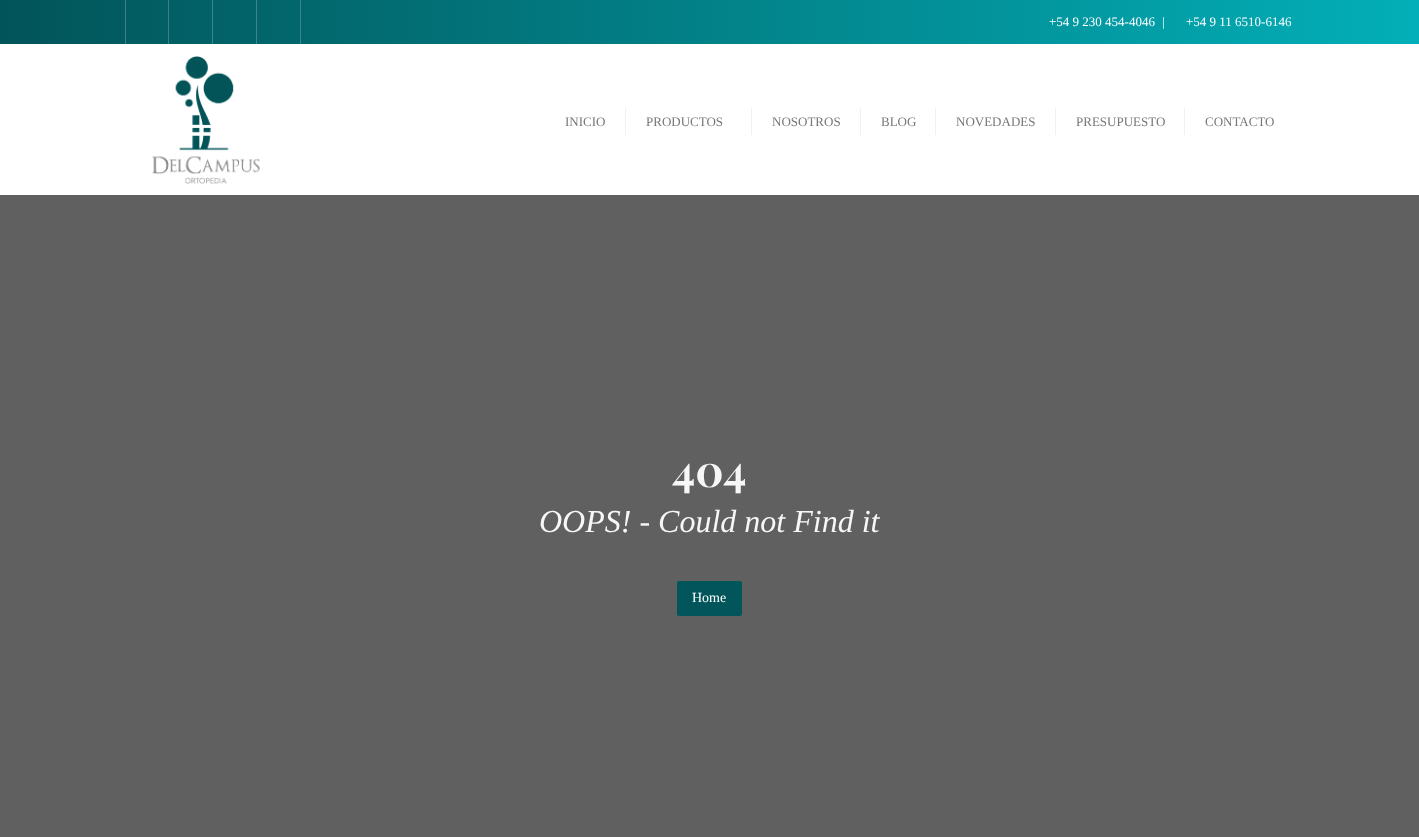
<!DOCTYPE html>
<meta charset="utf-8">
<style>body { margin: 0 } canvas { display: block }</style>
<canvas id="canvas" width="1419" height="837"></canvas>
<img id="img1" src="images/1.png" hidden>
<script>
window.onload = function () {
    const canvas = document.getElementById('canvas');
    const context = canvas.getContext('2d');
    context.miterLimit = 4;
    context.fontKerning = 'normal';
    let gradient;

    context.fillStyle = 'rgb(255, 255, 255)';
    context.fillRect(0, 0, 1419, 837);
    gradient = context.createLinearGradient(0, 22, 1419, 22);
    gradient.addColorStop(0, 'rgb(2, 84, 89)');
    gradient.addColorStop(1, 'rgb(3, 175, 184)');
    context.fillStyle = gradient;
    context.fillRect(0, 0, 1419, 44);
    context.fillStyle = 'rgb(58, 130, 134)';
    context.fillRect(168, 0, 1, 44);
    context.fillStyle = 'rgb(58, 128, 132)';
    context.fillRect(125, 0, 1, 44);
    context.fillStyle = 'rgb(58, 133, 136)';
    context.fillRect(212, 0, 1, 44);
    context.fillStyle = 'rgb(58, 134, 139)';
    context.fillRect(256, 0, 1, 44);
    context.fillStyle = 'rgb(58, 136, 141)';
    context.fillRect(300, 0, 1, 44);
    context.drawImage(document.getElementById('img1'), 152, 56, 108, 128);
    context.fillStyle = 'rgb(241, 241, 241)';
    context.fillRect(625, 108, 1, 27);
    context.fillRect(751, 108, 1, 27);
    context.fillRect(860, 108, 1, 27);
    context.fillRect(935, 108, 1, 27);
    context.fillRect(1055, 108, 1, 27);
    context.fillRect(1184, 108, 1, 27);
    context.fillStyle = 'rgb(96, 96, 96)';
    context.fillRect(0, 195, 1419, 642);
    context.fillStyle = 'rgb(2, 86, 91)';
    context.beginPath();
    context.roundRect(677, 581, 65, 35, 2);
    context.fill();
    context.font = '13px Liberation Serif';
    context.fillStyle = 'rgb(255, 255, 255)';
    context.fillText('+54 9 230 454-4046', 1049, 26);
    context.fillText('|', 1162, 26);
    context.fillText('+54 9 11 6510-6146', 1186, 26);
    context.fillStyle = 'rgb(119, 119, 119)';
    context.fillText('INICIO', 565, 126);
    context.fillText('PRODUCTOS', 646, 126);
    context.fillText('NOSOTROS', 772, 126);
    context.fillText('BLOG', 881, 126);
    context.fillText('NOVEDADES', 956, 126);
    context.fillText('PRESUPUESTO', 1076, 126);
    context.fillText('CONTACTO', 1205, 126);
    context.font = 'bold 44px Playfair Display';
    context.fillStyle = 'rgb(247, 247, 247)';
    context.fillText('404', 672, 487);
    context.font = 'italic 32px Liberation Serif';
    context.fillText('OOPS! - Could not Find it', 539, 532);
    context.font = '14px Liberation Serif';
    context.fillStyle = 'rgb(255, 255, 255)';
    context.fillText('Home', 692, 602);
};
</script>
